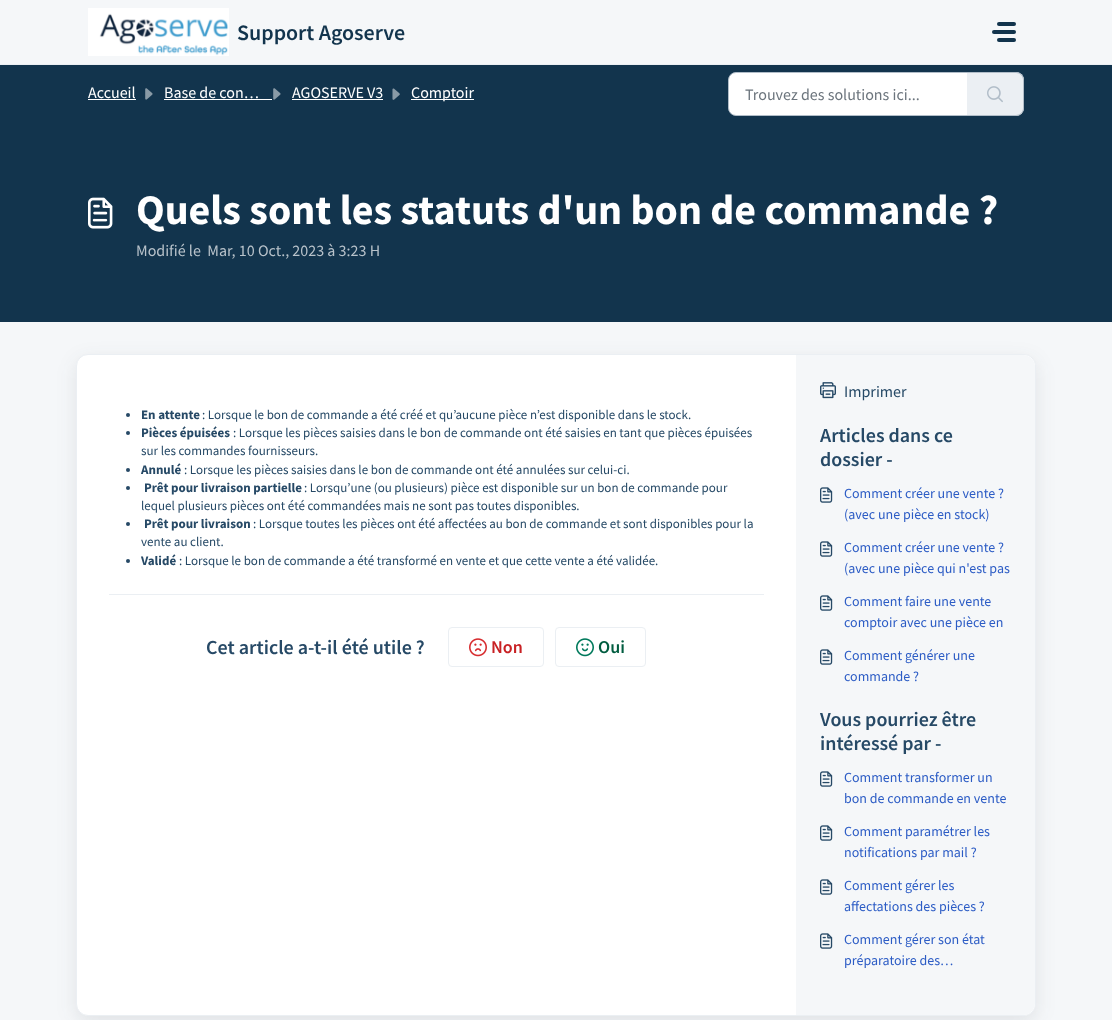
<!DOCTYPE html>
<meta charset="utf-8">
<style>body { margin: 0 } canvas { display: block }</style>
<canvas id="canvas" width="1112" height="1020"></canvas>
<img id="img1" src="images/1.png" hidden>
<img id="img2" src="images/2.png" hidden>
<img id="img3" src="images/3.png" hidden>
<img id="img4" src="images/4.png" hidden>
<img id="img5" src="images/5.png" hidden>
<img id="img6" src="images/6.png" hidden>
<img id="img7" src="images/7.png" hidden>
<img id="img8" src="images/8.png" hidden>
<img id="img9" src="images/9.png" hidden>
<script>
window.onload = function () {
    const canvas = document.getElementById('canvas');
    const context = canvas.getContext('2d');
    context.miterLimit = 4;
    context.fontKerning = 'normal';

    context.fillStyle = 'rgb(245, 247, 249)';
    context.fillRect(0, 0, 1112, 1020);
    context.fillStyle = 'rgb(235, 239, 243)';
    context.fillRect(0, 64, 1112, 1);
    context.drawImage(document.getElementById('img1'), 88, 8, 141, 48);
    context.fillStyle = 'rgb(18, 52, 77)';
    context.beginPath();
    context.roundRect(997, 22, 19, 4, 2);
    context.fill();
    context.beginPath();
    context.roundRect(992, 30, 24, 4, 2);
    context.fill();
    context.beginPath();
    context.roundRect(997, 38, 19, 4, 2);
    context.fill();
    context.fillRect(0, 65, 1112, 257);
    context.fillStyle = 'rgb(255, 255, 255)';
    context.fillRect(88, 99, 48, 1);
    context.drawImage(document.getElementById('img2'), 145, 88, 8, 12);
    context.fillRect(164, 99, 108, 1);
    context.drawImage(document.getElementById('img2'), 273, 88, 8, 12);
    context.fillRect(292, 99, 91, 1);
    context.drawImage(document.getElementById('img3'), 392, 88, 8, 12);
    context.fillRect(411, 99, 63, 1);
    context.beginPath();
    context.roundRect(728.5, 72.5, 239, 43, [7.5, 0, 0, 7.5]);
    context.fill();
    context.strokeStyle = 'rgb(177, 189, 200)';
    context.stroke();
    context.fillStyle = 'rgb(235, 239, 243)';
    context.beginPath();
    context.roundRect(967, 72, 57, 44, [0, 8, 8, 0]);
    context.fill();
    context.fillStyle = 'rgb(177, 189, 200)';
    context.beginPath();
    context.moveTo(967, 72);
    context.lineTo(1016, 72);
    context.bezierCurveTo(1020, 72, 1024, 76, 1024, 80);
    context.lineTo(1024, 108);
    context.bezierCurveTo(1024, 112, 1020, 116, 1016, 116);
    context.lineTo(967, 116);
    context.closePath();
    context.moveTo(967, 73);
    context.lineTo(1016, 73);
    context.bezierCurveTo(1020, 73, 1023, 76, 1023, 80);
    context.lineTo(1023, 108);
    context.bezierCurveTo(1023, 112, 1020, 115, 1016, 115);
    context.lineTo(967, 115);
    context.closePath();
    context.fill('evenodd');
    context.drawImage(document.getElementById('img4'), 987, 86, 16, 17);
    context.drawImage(document.getElementById('img5'), 88, 197, 25, 32);
    context.fillStyle = 'rgba(39, 49, 58, 0.1)';
    context.filter = 'blur(9.5px)';
    context.beginPath();
    context.roundRect(76, 360, 960, 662, 12);
    context.fill();
    context.filter = 'none';
    context.fillStyle = 'rgb(255, 255, 255)';
    context.beginPath();
    context.roundRect(76.5, 354.5, 959, 661, 11.5);
    context.fill();
    context.strokeStyle = 'rgb(235, 239, 243)';
    context.stroke();
    context.fillStyle = 'rgb(38, 73, 102)';
    context.beginPath();
    context.arc(128, 415, 2, 0, 2 * Math.PI);
    context.fill();
    context.beginPath();
    context.arc(128, 433, 2, 0, 2 * Math.PI);
    context.fill();
    context.beginPath();
    context.arc(128, 470, 2, 0, 2 * Math.PI);
    context.fill();
    context.beginPath();
    context.arc(128, 488, 2, 0, 2 * Math.PI);
    context.fill();
    context.beginPath();
    context.arc(128, 524, 2, 0, 2 * Math.PI);
    context.fill();
    context.beginPath();
    context.arc(128, 561, 2, 0, 2 * Math.PI);
    context.fill();
    context.fillStyle = 'rgb(235, 239, 243)';
    context.fillRect(109, 594, 655, 1);
    context.beginPath();
    context.roundRect(448.5, 627.5, 95, 39, 3.5);
    context.stroke();
    context.drawImage(document.getElementById('img6'), 469, 638, 18, 19);
    context.beginPath();
    context.roundRect(555.5, 627.5, 90, 39, 3.5);
    context.stroke();
    context.drawImage(document.getElementById('img7'), 576, 638, 18, 19);
    context.fillStyle = 'rgb(245, 247, 249)';
    context.beginPath();
    context.roundRect(796, 355, 239, 660, [0, 12, 12, 0]);
    context.fill();
    context.drawImage(document.getElementById('img8'), 820, 382, 16, 17);
    context.drawImage(document.getElementById('img9'), 820, 487, 13, 16);
    context.drawImage(document.getElementById('img9'), 820, 541, 13, 16);
    context.drawImage(document.getElementById('img9'), 820, 595, 13, 16);
    context.drawImage(document.getElementById('img9'), 820, 649, 13, 16);
    context.drawImage(document.getElementById('img9'), 820, 771, 13, 16);
    context.drawImage(document.getElementById('img9'), 820, 825, 13, 16);
    context.drawImage(document.getElementById('img9'), 820, 879, 13, 16);
    context.drawImage(document.getElementById('img9'), 820, 933, 13, 16);
    context.font = '600 22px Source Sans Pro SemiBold';
    context.fillStyle = 'rgb(18, 52, 77)';
    context.fillText('Support Agoserve', 237, 40);
    context.font = '16px Source Sans Pro';
    context.fillStyle = 'rgb(255, 255, 255)';
    context.fillText('Accueil', 88, 98);
    context.fillText('Base de con…', 164, 98);
    context.fillText('AGOSERVE V3', 292, 98);
    context.fillText('Comptoir', 411, 98);
    context.fillStyle = 'rgb(108, 117, 125)';
    context.fillText('Trouvez des solutions ici...', 745, 100);
    context.font = 'bold 42px Source Sans Pro';
    context.fillStyle = 'rgb(255, 255, 255)';
    context.fillText('Quels sont les statuts d\'un bon de commande ?', 136, 224);
    context.font = '16px Source Sans Pro';
    context.fillStyle = 'rgb(184, 194, 202)';
    context.fillText('Modifié le  Mar, 10 Oct., 2023 à 3:23 H', 136, 256);
    context.font = 'bold 13px Source Sans Pro';
    context.fillStyle = 'rgb(38, 73, 102)';
    context.fillText('En attente', 141, 419);
    context.font = '13px Source Sans Pro';
    context.fillText(': Lorsque le bon de commande a été créé et qu’aucune pièce n’est disponible dans le stock.', 202, 419);
    context.font = 'bold 13px Source Sans Pro';
    context.fillText('Pièces épuisées', 141, 437);
    context.font = '13px Source Sans Pro';
    context.fillText(': Lorsque les pièces saisies dans le bon de commande ont été saisies en tant que pièces épuisées', 233, 437);
    context.fillText('sur les commandes fournisseurs.', 141, 455);
    context.font = 'bold 13px Source Sans Pro';
    context.fillText('Annulé', 141, 474);
    context.font = '13px Source Sans Pro';
    context.fillText(': Lorsque les pièces saisies dans le bon de commande ont été annulées sur celui-ci.', 184, 474);
    context.font = 'bold 13px Source Sans Pro';
    context.fillText('Prêt pour livraison partielle', 144, 492);
    context.font = '13px Source Sans Pro';
    context.fillText(': Lorsqu’une (ou plusieurs) pièce est disponible sur un bon de commande pour', 304, 492);
    context.fillText('lequel plusieurs pièces ont été commandées mais ne sont pas toutes disponibles.', 141, 510);
    context.font = 'bold 13px Source Sans Pro';
    context.fillText('Prêt pour livraison', 144, 528);
    context.font = '13px Source Sans Pro';
    context.fillText(': Lorsque toutes les pièces ont été affectées au bon de commande et sont disponibles pour la', 253, 528);
    context.fillText('vente au client.', 141, 546);
    context.font = 'bold 13px Source Sans Pro';
    context.fillText('Validé', 141, 565);
    context.font = '13px Source Sans Pro';
    context.fillText(': Lorsque le bon de commande a été transformé en vente et que cette vente a été validée.', 179, 565);
    context.font = '600 20px Source Sans Pro SemiBold';
    context.fillText('Cet article a-t-il été utile ?', 206, 654);
    context.font = '600 18px Source Sans Pro SemiBold';
    context.fillStyle = 'rgb(200, 33, 36)';
    context.fillText('Non', 491, 653);
    context.fillStyle = 'rgb(0, 92, 63)';
    context.fillText('Oui', 598, 653);
    context.font = '16px Source Sans Pro';
    context.fillStyle = 'rgb(38, 73, 102)';
    context.fillText('Imprimer', 844, 397);
    context.font = '600 20px Source Sans Pro SemiBold';
    context.fillText('Articles dans ce', 820, 442);
    context.fillText('dossier -', 820, 466);
    context.font = '14px Source Sans Pro';
    context.fillStyle = 'rgb(44, 92, 197)';
    context.fillText('Comment créer une vente ?', 844, 498);
    context.fillText('(avec une pièce en stock)', 844, 519);
    context.fillText('Comment créer une vente ?', 844, 552);
    context.fillText('(avec une pièce qui n\'est pas', 844, 573);
    context.fillText('Comment faire une vente', 844, 606);
    context.fillText('comptoir avec une pièce en', 844, 627);
    context.fillText('Comment générer une', 844, 660);
    context.fillText('commande ?', 844, 681);
    context.font = '600 20px Source Sans Pro SemiBold';
    context.fillStyle = 'rgb(38, 73, 102)';
    context.fillText('Vous pourriez être', 820, 726);
    context.fillText('intéressé par -', 820, 750);
    context.font = '14px Source Sans Pro';
    context.fillStyle = 'rgb(44, 92, 197)';
    context.fillText('Comment transformer un', 844, 782);
    context.fillText('bon de commande en vente', 844, 803);
    context.fillText('Comment paramétrer les', 844, 836);
    context.fillText('notifications par mail ?', 844, 857);
    context.fillText('Comment gérer les', 844, 890);
    context.fillText('affectations des pièces ?', 844, 911);
    context.fillText('Comment gérer son état', 844, 944);
    context.fillText('préparatoire des…', 844, 965);
};
</script>
